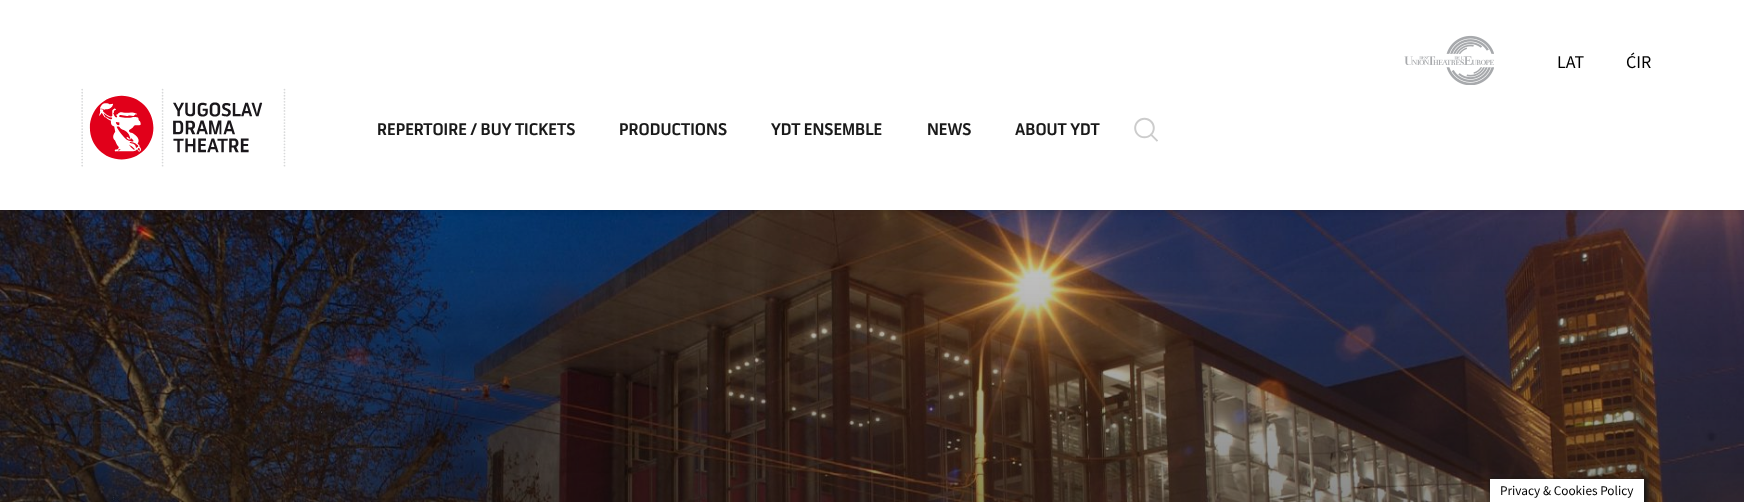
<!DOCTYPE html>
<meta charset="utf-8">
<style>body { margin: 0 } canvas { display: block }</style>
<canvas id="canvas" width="1744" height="502"></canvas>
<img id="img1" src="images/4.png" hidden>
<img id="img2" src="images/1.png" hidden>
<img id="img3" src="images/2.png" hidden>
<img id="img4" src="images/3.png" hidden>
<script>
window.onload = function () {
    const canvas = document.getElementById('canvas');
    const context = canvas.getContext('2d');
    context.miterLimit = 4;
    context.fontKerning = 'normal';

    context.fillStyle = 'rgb(255, 255, 255)';
    context.fillRect(0, 0, 1744, 502);
    context.drawImage(document.getElementById('img1'), 0, 210, 1744, 292);
    context.fillStyle = 'rgba(0, 0, 0, 0.09)';
    context.filter = 'blur(2px)';
    context.beginPath();
    context.rect(0, 2, 1744, 210);
    context.fill();
    context.filter = 'none';
    context.fillStyle = 'rgb(255, 255, 255)';
    context.fillRect(0, 0, 1744, 210);
    context.drawImage(document.getElementById('img2'), 1404, 35, 90, 50);
    context.drawImage(document.getElementById('img3'), 81, 88, 205, 79);
    context.drawImage(document.getElementById('img4'), 1134, 117, 24, 25);
    context.fillStyle = 'rgb(22, 22, 22)';
    context.filter = 'blur(2.5px)';
    context.beginPath();
    context.rect(1490, 479, 158, 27);
    context.fill();
    context.filter = 'none';
    context.fillStyle = 'rgb(255, 255, 255)';
    context.fillRect(1490, 479, 154, 23);
    context.font = '18px Source Sans Pro';
    context.fillStyle = 'rgb(0, 0, 0)';
    context.fillText('LAT', 1557, 68);
    context.fillText('ĆIR', 1626, 68);
    context.font = 'bold 16px "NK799"';
    context.fillStyle = 'rgb(26, 26, 26)';
    context.fillText('REPERTOIRE / BUY TICKETS', 377, 135);
    context.fillText('PRODUCTIONS', 619, 135);
    context.fillText('YDT ENSEMBLE', 771, 135);
    context.fillText('NEWS', 927, 135);
    context.fillText('ABOUT YDT', 1015, 135);
    context.font = '13.25px Source Sans Pro';
    context.fillStyle = 'rgb(0, 0, 0)';
    context.fillText('Privacy & Cookies Policy', 1500, 495);
};
</script>
